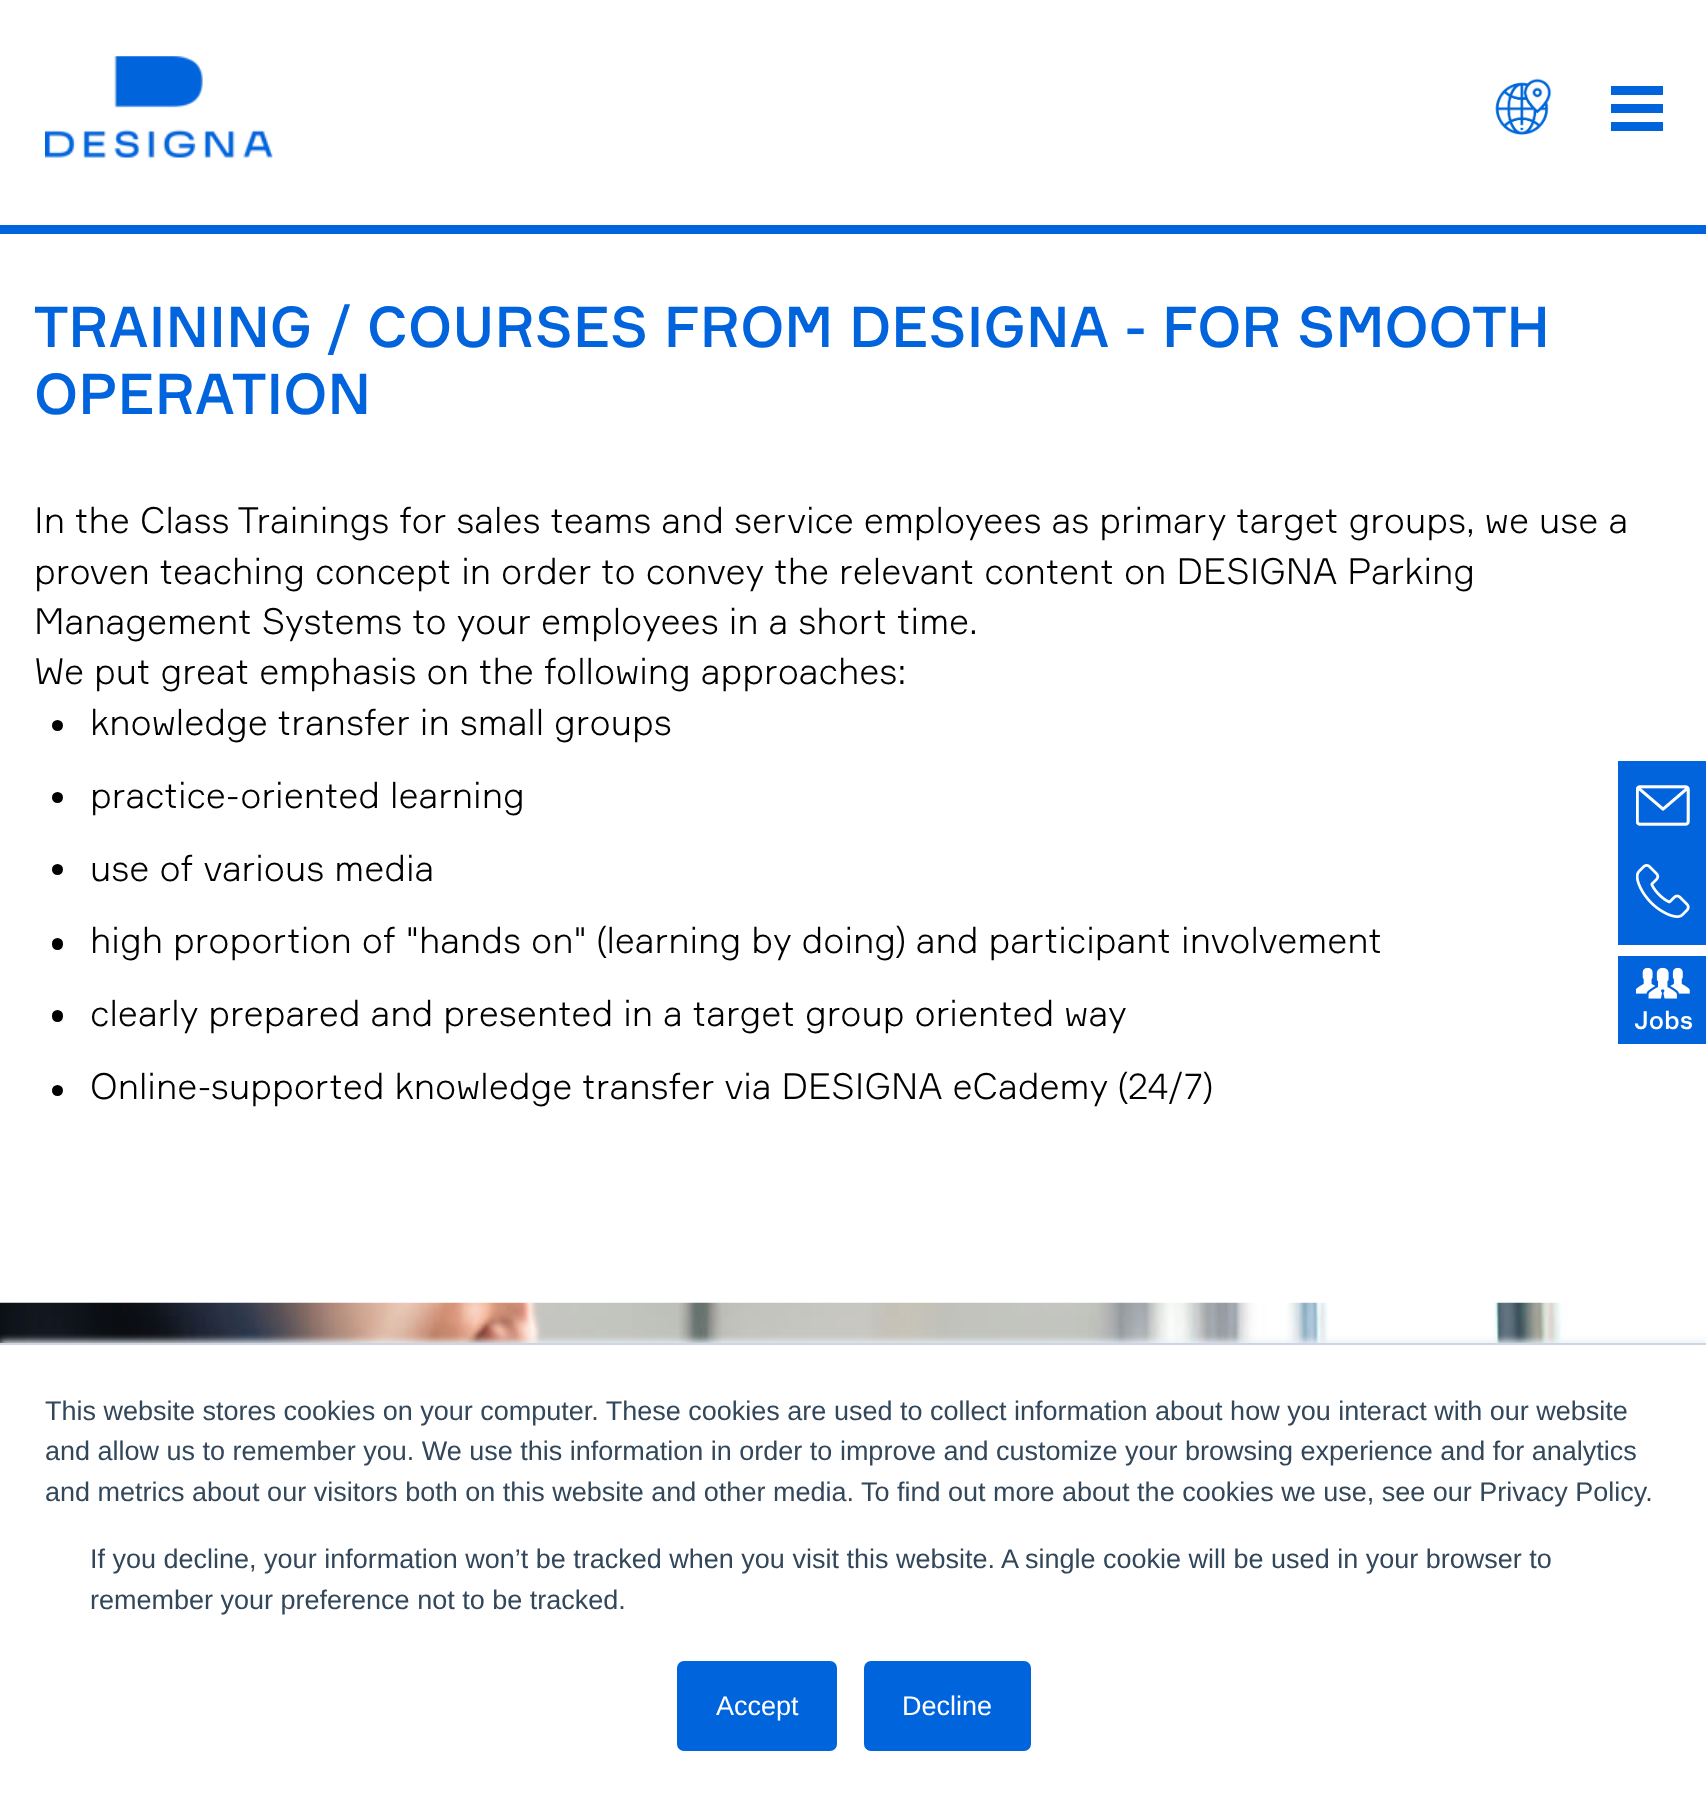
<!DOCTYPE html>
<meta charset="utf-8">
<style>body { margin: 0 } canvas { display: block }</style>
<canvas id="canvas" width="1706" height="1808"></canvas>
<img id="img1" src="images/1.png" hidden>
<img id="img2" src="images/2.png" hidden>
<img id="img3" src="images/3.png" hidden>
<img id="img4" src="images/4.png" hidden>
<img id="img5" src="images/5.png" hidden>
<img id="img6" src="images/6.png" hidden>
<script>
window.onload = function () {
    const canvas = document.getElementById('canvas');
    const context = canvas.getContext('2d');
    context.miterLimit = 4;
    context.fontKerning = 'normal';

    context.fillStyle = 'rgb(255, 255, 255)';
    context.fillRect(0, 0, 1706, 1808);
    context.fillStyle = 'rgb(0, 100, 220)';
    context.fillRect(0, 225, 1706, 9);
    context.drawImage(document.getElementById('img1'), 45, 56, 228, 102);
    context.drawImage(document.getElementById('img2'), 1495, 78, 57, 57);
    context.fillStyle = 'rgb(2, 100, 220)';
    context.fillRect(1611, 86, 52, 9);
    context.fillRect(1611, 104, 52, 9);
    context.fillRect(1611, 122, 52, 9);
    context.fillStyle = 'rgb(0, 0, 0)';
    context.beginPath();
    context.arc(57.5, 725.5, 5.5, 0, 2 * Math.PI);
    context.fill();
    context.beginPath();
    context.arc(57.5, 797.5, 5.5, 0, 2 * Math.PI);
    context.fill();
    context.beginPath();
    context.arc(57.5, 869.5, 5.5, 0, 2 * Math.PI);
    context.fill();
    context.beginPath();
    context.roundRect(52, 938, 11, 12, 5.5);
    context.fill();
    context.beginPath();
    context.roundRect(52, 1010, 11, 12, 5.5);
    context.fill();
    context.beginPath();
    context.arc(57.5, 1090.5, 5.5, 0, 2 * Math.PI);
    context.fill();
    context.drawImage(document.getElementById('img3'), 0, 1302, 1706, 41);
    context.fillStyle = 'rgb(2, 100, 220)';
    context.fillRect(1618, 761, 88, 184);
    context.drawImage(document.getElementById('img4'), 1636, 785, 54, 41);
    context.drawImage(document.getElementById('img5'), 1636, 864, 54, 54);
    context.fillRect(1618, 956, 88, 88);
    context.drawImage(document.getElementById('img6'), 1636, 967, 54, 32);
    context.fillStyle = 'rgb(234, 240, 246)';
    context.filter = 'blur(3.5px)';
    context.beginPath();
    context.rect(0, 1341, 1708, 466);
    context.fill();
    context.filter = 'none';
    context.fillStyle = 'rgb(255, 255, 255)';
    context.fillRect(0, 1345, 1706, 463);
    context.fillStyle = 'rgb(203, 214, 226)';
    context.fillRect(0, 1343, 1706, 2);
    context.fillStyle = 'rgb(0, 100, 220)';
    context.beginPath();
    context.roundRect(678, 1662, 158, 88, 6);
    context.fill();
    context.strokeStyle = 'rgb(0, 100, 220)';
    context.lineWidth = 2;
    context.stroke();
    context.beginPath();
    context.roundRect(865, 1662, 165, 88, 6);
    context.fill();
    context.stroke();
    context.font = '500 56.25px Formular';
    context.fillStyle = 'rgb(2, 100, 220)';
    context.fillText('TRAINING / COURSES FROM DESIGNA - FOR SMOOTH', 34, 347);
    context.fillText('OPERATION', 34, 414);
    context.font = '300 36px Formular';
    context.fillStyle = 'rgb(0, 0, 0)';
    context.fillText('In the Class Trainings for sales teams and service employees as primary target groups, we use a', 34, 533);
    context.fillText('proven teaching concept in order to convey the relevant content on DESIGNA Parking', 34, 584);
    context.fillText('Management Systems to your employees in a short time.', 34, 634);
    context.fillText('We put great emphasis on the following approaches:', 34, 684);
    context.fillText('knowledge transfer in small groups', 90, 735);
    context.fillText('practice-oriented learning', 90, 808);
    context.fillText('use of various media', 90, 881);
    context.fillText('high proportion of "hands on" (learning by doing) and participant involvement', 90, 953);
    context.fillText('clearly prepared and presented in a target group oriented way', 90, 1026);
    context.fillText('Online-supported knowledge transfer via DESIGNA eCademy (24/7)', 90, 1099);
    context.font = '500 25px Formular';
    context.fillStyle = 'rgb(255, 255, 255)';
    context.fillText('Jobs', 1634, 1029);
    context.font = '27px Liberation Sans';
    context.fillStyle = 'rgb(51, 71, 91)';
    context.fillText('This website stores cookies on your computer. These cookies are used to collect information about how you interact with our website', 45, 1420);
    context.fillText('and allow us to remember you. We use this information in order to improve and customize your browsing experience and for analytics', 45, 1460);
    context.fillText('and metrics about our visitors both on this website and other media. To find out more about the cookies we use, see our Privacy Policy.', 45, 1501);
    context.fillText('If you decline, your information won’t be tracked when you visit this website. A single cookie will be used in your browser to', 90, 1568);
    context.fillText('remember your preference not to be tracked.', 90, 1609);
    context.fillStyle = 'rgb(255, 255, 255)';
    context.fillText('Accept', 716, 1715);
    context.fillText('Decline', 902, 1715);
};
</script>
